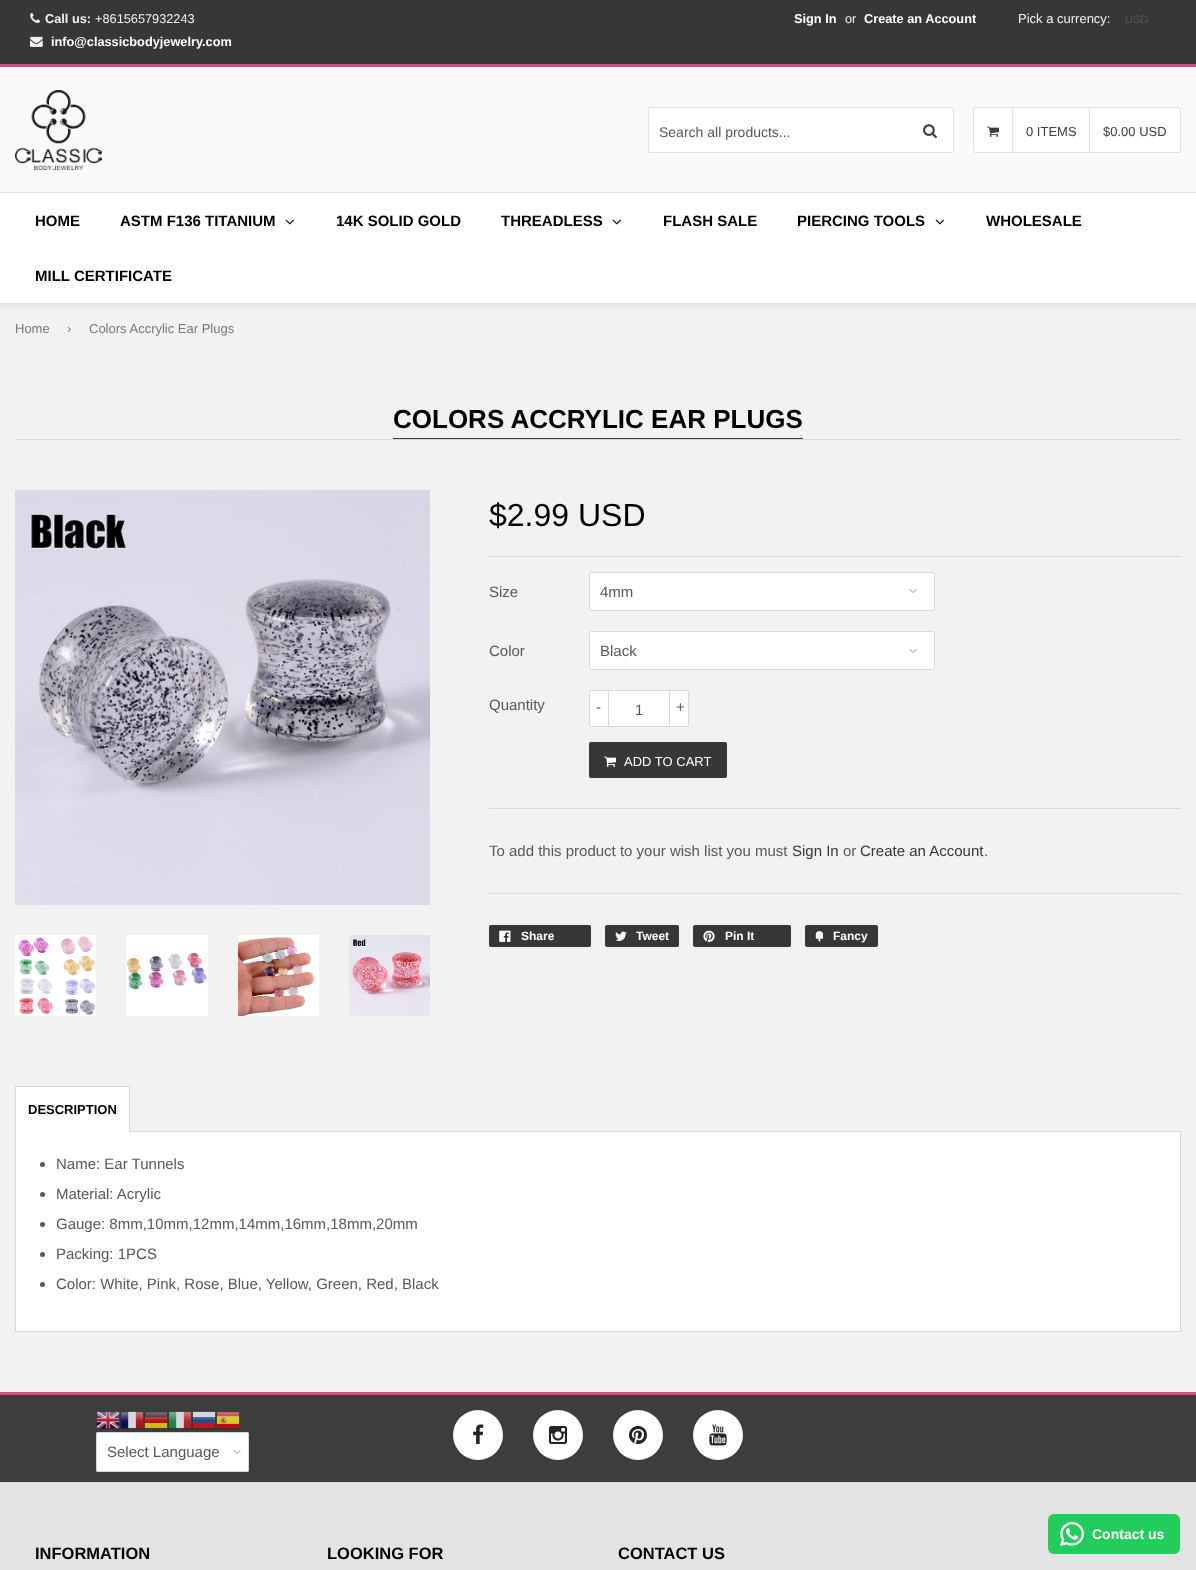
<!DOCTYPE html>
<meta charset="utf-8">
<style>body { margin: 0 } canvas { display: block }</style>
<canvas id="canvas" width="1196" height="1570"></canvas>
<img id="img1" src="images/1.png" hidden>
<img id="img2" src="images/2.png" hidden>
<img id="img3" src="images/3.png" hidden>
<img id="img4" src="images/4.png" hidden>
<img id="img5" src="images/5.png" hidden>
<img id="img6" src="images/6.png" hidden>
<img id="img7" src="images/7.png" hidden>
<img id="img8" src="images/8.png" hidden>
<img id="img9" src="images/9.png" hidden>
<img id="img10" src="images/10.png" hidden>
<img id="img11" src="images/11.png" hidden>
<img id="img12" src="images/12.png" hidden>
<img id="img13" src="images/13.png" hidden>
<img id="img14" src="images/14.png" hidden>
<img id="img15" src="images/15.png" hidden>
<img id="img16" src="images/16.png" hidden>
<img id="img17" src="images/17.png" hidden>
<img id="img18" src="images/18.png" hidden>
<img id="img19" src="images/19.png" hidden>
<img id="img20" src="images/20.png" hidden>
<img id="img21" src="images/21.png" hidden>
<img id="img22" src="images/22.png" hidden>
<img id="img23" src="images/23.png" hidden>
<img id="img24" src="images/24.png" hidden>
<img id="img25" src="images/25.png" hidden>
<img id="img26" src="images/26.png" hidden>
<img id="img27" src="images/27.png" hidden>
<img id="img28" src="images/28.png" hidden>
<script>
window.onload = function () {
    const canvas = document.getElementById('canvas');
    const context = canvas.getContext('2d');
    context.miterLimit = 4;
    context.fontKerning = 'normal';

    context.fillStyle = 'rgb(242, 242, 242)';
    context.fillRect(0, 0, 1196, 1570);
    context.fillStyle = 'rgb(55, 55, 56)';
    context.fillRect(0, 0, 1196, 64);
    context.fillStyle = 'rgb(212, 81, 116)';
    context.fillRect(0, 64, 1196, 3);
    context.drawImage(document.getElementById('img1'), 30, 13, 10, 10);
    context.drawImage(document.getElementById('img2'), 30, 36, 13, 11);
    context.fillStyle = 'rgb(250, 250, 250)';
    context.fillRect(0, 67, 1196, 125);
    context.drawImage(document.getElementById('img3'), 15, 90, 87, 80);
    context.beginPath();
    context.roundRect(648.5, 107.5, 305, 45, 1.5);
    context.strokeStyle = 'rgb(226, 226, 225)';
    context.stroke();
    context.fillStyle = 'rgb(255, 255, 255)';
    context.beginPath();
    context.roundRect(649, 108, 304, 44, 2);
    context.fill();
    context.drawImage(document.getElementById('img4'), 923, 124, 14, 15);
    context.beginPath();
    context.roundRect(973.5, 107.5, 207, 45, 1.5);
    context.fill();
    context.stroke();
    context.drawImage(document.getElementById('img5'), 987, 126, 13, 11);
    context.fillStyle = 'rgb(226, 226, 225)';
    context.fillRect(1012, 108, 1, 44);
    context.fillRect(1089, 108, 1, 44);
    context.fillStyle = 'rgb(229, 229, 229)';
    context.filter = 'blur(1.5px)';
    context.beginPath();
    context.rect(0, 195, 1196, 112);
    context.fill();
    context.filter = 'none';
    context.fillStyle = 'rgb(255, 255, 255)';
    context.fillRect(0, 193, 1196, 110);
    context.fillStyle = 'rgb(226, 226, 225)';
    context.fillRect(0, 192, 1196, 1);
    context.fillRect(0, 303, 1196, 1);
    context.drawImage(document.getElementById('img6'), 285, 219, 9, 6);
    context.drawImage(document.getElementById('img6'), 612, 219, 9, 6);
    context.drawImage(document.getElementById('img6'), 935, 219, 9, 6);
    context.fillStyle = 'rgb(216, 216, 216)';
    context.fillRect(15, 439, 1166, 1);
    context.fillStyle = 'rgb(55, 55, 56)';
    context.fillRect(393, 438, 410, 1);
    context.drawImage(document.getElementById('img7'), 15, 490, 415, 415);
    context.drawImage(document.getElementById('img8'), 15, 935, 81, 81);
    context.drawImage(document.getElementById('img9'), 126, 935, 82, 81);
    context.drawImage(document.getElementById('img10'), 238, 935, 81, 81);
    context.drawImage(document.getElementById('img11'), 349, 935, 81, 81);
    context.fillStyle = 'rgb(216, 216, 216)';
    context.fillRect(489, 556, 692, 1);
    context.fillStyle = 'rgb(255, 255, 255)';
    context.beginPath();
    context.roundRect(589, 572, 346, 39, 2);
    context.fill();
    context.drawImage(document.getElementById('img12'), 909, 589, 8, 4);
    context.beginPath();
    context.roundRect(589.5, 572.5, 345, 38, 1.5);
    context.strokeStyle = 'rgb(216, 216, 216)';
    context.stroke();
    context.beginPath();
    context.roundRect(589, 631, 346, 39, 2);
    context.fill();
    context.drawImage(document.getElementById('img12'), 909, 649, 8, 4);
    context.beginPath();
    context.roundRect(589.5, 631.5, 345, 38, 1.5);
    context.stroke();
    context.beginPath();
    context.roundRect(589.5, 690.5, 99, 36, 1.5);
    context.fill();
    context.stroke();
    context.fillStyle = 'rgb(216, 216, 216)';
    context.fillRect(608, 690, 1, 37);
    context.fillRect(669, 690, 1, 37);
    context.fillStyle = 'rgb(55, 55, 56)';
    context.beginPath();
    context.roundRect(589, 742, 138, 36, 2);
    context.fill();
    context.drawImage(document.getElementById('img13'), 604, 756, 13, 11);
    context.fillStyle = 'rgb(216, 216, 216)';
    context.fillRect(489, 808, 692, 1);
    context.fillRect(489, 893, 692, 1);
    context.fillStyle = 'rgb(55, 55, 56)';
    context.beginPath();
    context.roundRect(489, 925, 102, 22, 2);
    context.fill();
    context.drawImage(document.getElementById('img14'), 499, 930, 12, 12);
    context.beginPath();
    context.roundRect(605, 925, 74, 22, 2);
    context.fill();
    context.drawImage(document.getElementById('img15'), 615, 931, 12, 10);
    context.beginPath();
    context.roundRect(693, 925, 98, 22, 2);
    context.fill();
    context.drawImage(document.getElementById('img16'), 703, 930, 12, 12);
    context.beginPath();
    context.roundRect(805, 925, 73, 22, 2);
    context.fill();
    context.drawImage(document.getElementById('img17'), 815, 931, 9, 11);
    context.fillStyle = 'rgb(216, 216, 216)';
    context.fillRect(130, 1131, 1051, 1);
    context.fillStyle = 'rgb(255, 255, 255)';
    context.fillRect(16, 1087, 113, 45);
    context.fillStyle = 'rgb(216, 216, 216)';
    context.fillRect(15, 1086, 115, 1);
    context.fillRect(129, 1086, 1, 46);
    context.fillRect(15, 1086, 1, 46);
    context.fillStyle = 'rgb(255, 255, 255)';
    context.fillRect(16, 1132, 1164, 199);
    context.fillStyle = 'rgb(216, 216, 216)';
    context.fillRect(1180, 1132, 1, 200);
    context.fillRect(15, 1331, 1166, 1);
    context.fillRect(15, 1132, 1, 200);
    context.fillStyle = 'rgb(88, 88, 88)';
    context.beginPath();
    context.arc(42.5, 1164.5, 2.5, 0, 2 * Math.PI);
    context.fill();
    context.beginPath();
    context.arc(42.5, 1194.5, 2.5, 0, 2 * Math.PI);
    context.fill();
    context.beginPath();
    context.arc(42.5, 1224.5, 2.5, 0, 2 * Math.PI);
    context.fill();
    context.beginPath();
    context.arc(42.5, 1254.5, 2.5, 0, 2 * Math.PI);
    context.fill();
    context.beginPath();
    context.arc(42.5, 1284.5, 2.5, 0, 2 * Math.PI);
    context.fill();
    context.fillStyle = 'rgb(61, 61, 61)';
    context.fillRect(0, 1395, 1196, 86);
    context.fillStyle = 'rgb(212, 81, 116)';
    context.fillRect(0, 1392, 1196, 3);
    context.fillStyle = 'rgb(48, 48, 48)';
    context.fillRect(0, 1481, 1196, 1);
    context.fillStyle = 'rgb(255, 255, 255)';
    context.beginPath();
    context.arc(478, 1435, 25, 0, 2 * Math.PI);
    context.fill();
    context.drawImage(document.getElementById('img18'), 473, 1424, 11, 20);
    context.beginPath();
    context.arc(558, 1435, 25, 0, 2 * Math.PI);
    context.fill();
    context.drawImage(document.getElementById('img19'), 549, 1426, 18, 18);
    context.beginPath();
    context.arc(638, 1435, 25, 0, 2 * Math.PI);
    context.fill();
    context.drawImage(document.getElementById('img20'), 629, 1426, 18, 18);
    context.beginPath();
    context.arc(718, 1435, 25, 0, 2 * Math.PI);
    context.fill();
    context.drawImage(document.getElementById('img21'), 709, 1424, 18, 22);
    context.fillStyle = 'rgb(227, 227, 227)';
    context.fillRect(0, 1482, 1196, 88);
    context.drawImage(document.getElementById('img22'), 96, 1411, 24, 19);
    context.drawImage(document.getElementById('img23'), 120, 1411, 24, 19);
    context.drawImage(document.getElementById('img24'), 144, 1412, 24, 18);
    context.drawImage(document.getElementById('img25'), 168, 1411, 24, 19);
    context.drawImage(document.getElementById('img26'), 192, 1411, 24, 19);
    context.drawImage(document.getElementById('img27'), 216, 1411, 24, 19);
    context.fillStyle = 'rgb(255, 255, 255)';
    context.beginPath();
    context.roundRect(96, 1432, 153, 40, 2);
    context.fill();
    context.drawImage(document.getElementById('img12'), 233, 1450, 8, 4);
    context.beginPath();
    context.roundRect(96.5, 1432.5, 152, 39, 1.5);
    context.stroke();
    context.fillStyle = 'rgb(34, 205, 91)';
    context.beginPath();
    context.roundRect(1048, 1514, 132, 40, 6);
    context.fill();
    context.drawImage(document.getElementById('img28'), 1060, 1522, 24, 24);
    context.font = 'bold 12.75px Liberation Sans';
    context.fillStyle = 'rgb(242, 242, 242)';
    context.fillText('Call us:', 45, 23);
    context.font = '12.75px Liberation Sans';
    context.fillText('+8615657932243', 95, 23);
    context.font = 'bold 12.75px Liberation Sans';
    context.fillStyle = 'rgb(255, 255, 255)';
    context.fillText('info@classicbodyjewelry.com', 51, 46);
    context.fillText('Sign In', 794, 23);
    context.font = '12.75px Liberation Sans';
    context.fillStyle = 'rgb(242, 242, 242)';
    context.fillText('or', 845, 23);
    context.font = 'bold 12.75px Liberation Sans';
    context.fillStyle = 'rgb(255, 255, 255)';
    context.fillText('Create an Account', 864, 23);
    context.font = '13px Liberation Sans';
    context.fillStyle = 'rgb(242, 242, 242)';
    context.fillText('Pick a currency:', 1018, 23);
    context.font = '11px Liberation Sans';
    context.fillStyle = 'rgb(88, 88, 88)';
    context.fillText('USD', 1125, 23);
    context.font = '14px Liberation Sans';
    context.fillText('Search all products...', 659, 137);
    context.font = '13px Liberation Sans';
    context.fillStyle = 'rgb(64, 64, 66)';
    context.fillText('0 ITEMS', 1026, 136);
    context.fillText('$0.00 USD', 1103, 136);
    context.font = 'bold 15px Liberation Sans';
    context.fillStyle = 'rgb(0, 0, 0)';
    context.fillText('HOME', 35, 226);
    context.fillText('ASTM F136 TITANIUM', 120, 226);
    context.fillText('14K SOLID GOLD', 336, 226);
    context.fillText('THREADLESS', 501, 226);
    context.fillText('FLASH SALE', 663, 226);
    context.fillText('PIERCING TOOLS', 797, 226);
    context.fillText('WHOLESALE', 986, 226);
    context.fillText('MILL CERTIFICATE', 35, 281);
    context.font = '13px Liberation Sans';
    context.fillStyle = 'rgb(119, 119, 119)';
    context.fillText('Home', 15, 333);
    context.fillText('›', 67, 333);
    context.fillText('Colors Accrylic Ear Plugs', 89, 333);
    context.font = 'bold 26px Liberation Sans';
    context.fillStyle = 'rgb(0, 0, 0)';
    context.fillText('COLORS ACCRYLIC EAR PLUGS', 393, 428);
    context.font = '32px Liberation Sans';
    context.fillText('$2.99 USD', 489, 526);
    context.font = '15px Liberation Sans';
    context.fillStyle = 'rgb(88, 88, 88)';
    context.fillText('Size', 489, 597);
    context.fillText('4mm', 600, 597);
    context.fillText('Color', 489, 656);
    context.fillText('Black', 600, 656);
    context.fillText('Quantity', 489, 710);
    context.fillText('-', 596, 712);
    context.fillText('1', 635, 715);
    context.fillText('+', 676, 712);
    context.font = '13px Liberation Sans';
    context.fillStyle = 'rgb(255, 255, 255)';
    context.fillText('ADD TO CART', 624, 766);
    context.font = '15px Liberation Sans';
    context.fillStyle = 'rgb(88, 88, 88)';
    context.fillText('To add this product to your wish list you must', 489, 856);
    context.fillStyle = 'rgb(55, 55, 56)';
    context.fillText('Sign In', 792, 856);
    context.fillStyle = 'rgb(88, 88, 88)';
    context.fillText('or', 843, 856);
    context.fillStyle = 'rgb(55, 55, 56)';
    context.fillText('Create an Account', 860, 856);
    context.fillStyle = 'rgb(88, 88, 88)';
    context.fillText('.', 984, 856);
    context.font = 'bold 12px Liberation Sans';
    context.fillStyle = 'rgb(255, 255, 255)';
    context.fillText('Share', 521, 940);
    context.fillText('Tweet', 636, 940);
    context.fillText('Pin It', 725, 940);
    context.fillText('Fancy', 833, 940);
    context.font = 'bold 13px Liberation Sans';
    context.fillStyle = 'rgb(0, 0, 0)';
    context.fillText('DESCRIPTION', 28, 1114);
    context.font = '15px Liberation Sans';
    context.fillStyle = 'rgb(88, 88, 88)';
    context.fillText('Name: Ear Tunnels', 56, 1169);
    context.fillText('Material: Acrylic', 56, 1199);
    context.fillText('Gauge: 8mm,10mm,12mm,14mm,16mm,18mm,20mm', 56, 1229);
    context.fillText('Packing: 1PCS', 56, 1259);
    context.fillText('Color: White, Pink, Rose, Blue, Yellow, Green, Red, Black', 56, 1289);
    context.font = 'bold 16.5px Liberation Sans';
    context.fillStyle = 'rgb(0, 0, 0)';
    context.fillText('INFORMATION', 35, 1559);
    context.fillText('LOOKING FOR', 327, 1559);
    context.fillText('CONTACT US', 618, 1559);
    context.font = '15px Liberation Sans';
    context.fillStyle = 'rgb(88, 88, 88)';
    context.fillText('Select Language', 107, 1457);
    context.font = 'bold 14px Liberation Sans';
    context.fillStyle = 'rgb(255, 255, 255)';
    context.fillText('Contact us', 1092, 1539);
};
</script>
